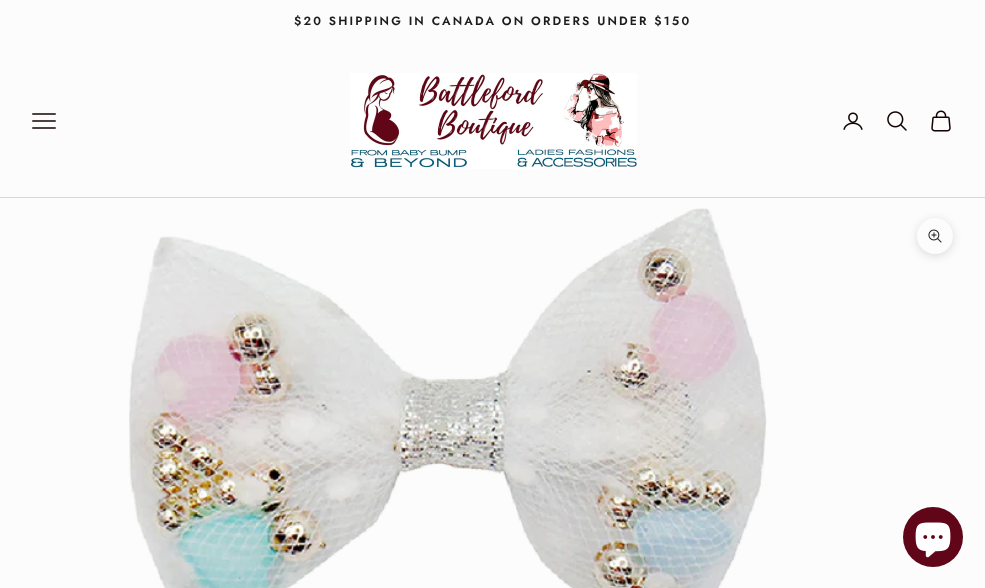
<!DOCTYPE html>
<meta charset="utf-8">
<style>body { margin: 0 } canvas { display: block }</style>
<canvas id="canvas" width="985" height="588"></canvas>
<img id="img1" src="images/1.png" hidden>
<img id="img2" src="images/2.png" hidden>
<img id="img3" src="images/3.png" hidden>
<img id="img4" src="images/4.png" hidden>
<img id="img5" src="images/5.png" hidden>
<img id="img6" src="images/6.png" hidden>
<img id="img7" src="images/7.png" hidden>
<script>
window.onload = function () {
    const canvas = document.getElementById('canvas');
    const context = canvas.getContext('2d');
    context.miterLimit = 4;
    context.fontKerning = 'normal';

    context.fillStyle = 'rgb(252, 252, 252)';
    context.fillRect(0, 0, 985, 588);
    context.fillStyle = 'rgb(217, 215, 215)';
    context.fillRect(0, 197, 985, 1);
    context.beginPath();
    context.moveTo(33, 128);
    context.lineTo(55, 128);
    context.moveTo(33, 121);
    context.lineTo(55, 121);
    context.moveTo(33, 114);
    context.lineTo(55, 114);
    context.strokeStyle = 'rgb(19, 2, 2)';
    context.lineWidth = 1.5;
    context.lineCap = 'square';
    context.stroke();
    context.drawImage(document.getElementById('img1'), 350, 73, 287, 96);
    context.drawImage(document.getElementById('img2'), 843, 112, 20, 18);
    context.drawImage(document.getElementById('img3'), 887, 111, 20, 20);
    context.drawImage(document.getElementById('img4'), 931, 110, 20, 22);
    context.drawImage(document.getElementById('img5'), 129, 208, 638, 380);
    context.fillStyle = 'rgba(28, 28, 28, 0.15)';
    context.filter = 'blur(5px)';
    context.beginPath();
    context.roundRect(917, 220, 36, 36, 18);
    context.fill();
    context.filter = 'none';
    context.fillStyle = 'rgb(252, 252, 252)';
    context.beginPath();
    context.arc(935, 236, 18, 0, 2 * Math.PI);
    context.fill();
    context.drawImage(document.getElementById('img6'), 928, 229, 14, 14);
    context.fillStyle = 'rgb(97, 6, 24)';
    context.beginPath();
    context.arc(933, 537, 30, 0, 2 * Math.PI);
    context.fill();
    context.drawImage(document.getElementById('img7'), 915, 522, 36, 36);
    context.letterSpacing = '2.15px';
    context.font = '600 12px Jost';
    context.fillStyle = 'rgb(28, 28, 28)';
    context.fillText('$20 SHIPPING IN CANADA ON ORDERS UNDER $150', 294, 25);
};
</script>
